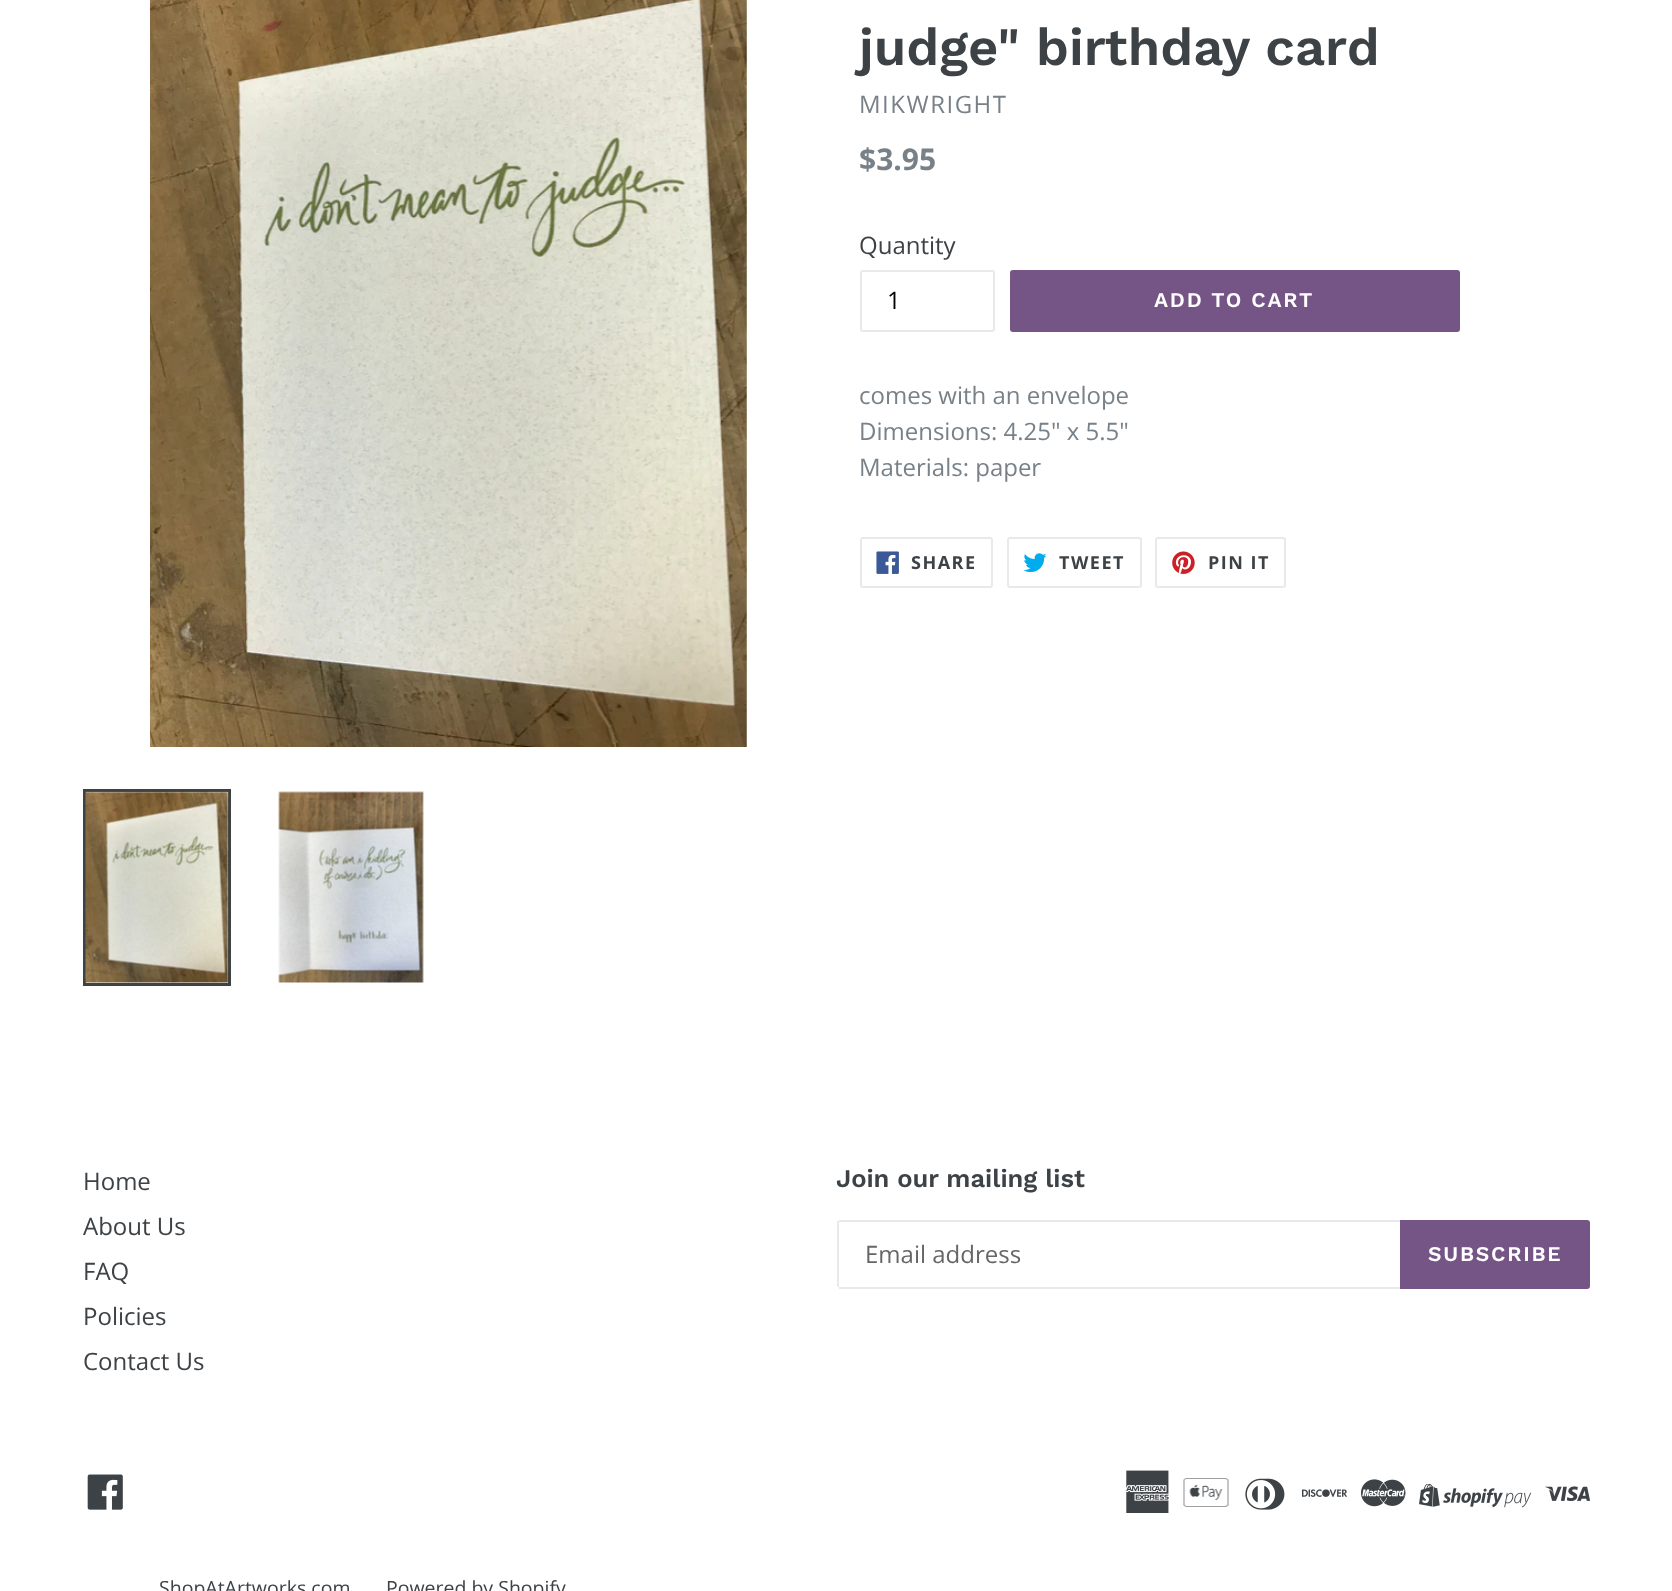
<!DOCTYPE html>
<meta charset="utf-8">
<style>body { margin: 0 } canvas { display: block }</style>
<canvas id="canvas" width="1672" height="1591"></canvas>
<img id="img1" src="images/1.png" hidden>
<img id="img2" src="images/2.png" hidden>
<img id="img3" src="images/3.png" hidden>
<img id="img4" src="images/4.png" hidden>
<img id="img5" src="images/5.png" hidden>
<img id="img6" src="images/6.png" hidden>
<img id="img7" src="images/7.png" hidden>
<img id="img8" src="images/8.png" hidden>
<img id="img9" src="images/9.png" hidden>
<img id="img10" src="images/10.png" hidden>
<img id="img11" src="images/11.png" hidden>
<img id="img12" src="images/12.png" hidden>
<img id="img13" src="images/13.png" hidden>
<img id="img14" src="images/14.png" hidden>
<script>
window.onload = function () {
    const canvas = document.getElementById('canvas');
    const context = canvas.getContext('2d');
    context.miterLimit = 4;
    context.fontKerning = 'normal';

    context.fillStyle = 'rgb(255, 255, 255)';
    context.fillRect(0, 0, 1672, 1591);
    context.drawImage(document.getElementById('img1'), 150, 0, 597, 747);
    context.strokeStyle = 'rgb(61, 66, 70)';
    context.lineWidth = 3;
    context.strokeRect(84.5, 790.5, 145, 194);
    context.drawImage(document.getElementById('img2'), 85, 791, 144, 192);
    context.drawImage(document.getElementById('img3'), 278, 791, 146, 192);
    context.beginPath();
    context.roundRect(861, 271, 133, 60, 2);
    context.strokeStyle = 'rgb(232, 233, 235)';
    context.lineWidth = 2;
    context.stroke();
    context.fillStyle = 'rgb(117, 85, 134)';
    context.beginPath();
    context.roundRect(1010, 270, 450, 62, 3);
    context.fill();
    context.beginPath();
    context.roundRect(861, 538, 131, 49, 2);
    context.stroke();
    context.drawImage(document.getElementById('img4'), 876, 551, 23, 23);
    context.beginPath();
    context.roundRect(1008, 538, 133, 49, 2);
    context.stroke();
    context.drawImage(document.getElementById('img5'), 1023, 553, 24, 20);
    context.beginPath();
    context.roundRect(1156, 538, 129, 49, 2);
    context.stroke();
    context.drawImage(document.getElementById('img6'), 1172, 551, 23, 23);
    context.fillStyle = 'rgb(232, 233, 235)';
    context.fillRect(839, 1220, 561, 2);
    context.fillRect(839, 1287, 561, 2);
    context.fillRect(837, 1221, 2, 66);
    context.fillStyle = 'rgb(117, 85, 134)';
    context.beginPath();
    context.roundRect(1400, 1220, 190, 69, [0, 3, 3, 0]);
    context.fill();
    context.drawImage(document.getElementById('img7'), 87, 1474, 36, 36);
    context.drawImage(document.getElementById('img8'), 1126, 1470, 43, 43);
    context.drawImage(document.getElementById('img9'), 1183, 1478, 46, 29);
    context.drawImage(document.getElementById('img10'), 1245, 1478, 40, 32);
    context.drawImage(document.getElementById('img11'), 1302, 1489, 45, 8);
    context.drawImage(document.getElementById('img12'), 1361, 1479, 45, 28);
    context.drawImage(document.getElementById('img13'), 1419, 1484, 113, 24);
    context.drawImage(document.getElementById('img14'), 1545, 1486, 45, 15);
    context.font = '600 52.5px Work Sans';
    context.fillStyle = 'rgb(61, 66, 70)';
    context.fillText('judge" birthday card', 859, 65);
    context.letterSpacing = '1.5px';
    context.font = '24px Open Sans';
    context.fillStyle = 'rgb(120, 129, 136)';
    context.fillText('MIKWRIGHT', 859, 113);
    context.letterSpacing = '0px';
    context.font = 'bold 30px Open Sans';
    context.fillText('$3.95', 859, 170);
    context.font = '24px Open Sans';
    context.fillStyle = 'rgb(61, 66, 70)';
    context.fillText('Quantity', 859, 254);
    context.fillStyle = 'rgb(0, 0, 0)';
    context.fillText('1', 887, 309);
    context.letterSpacing = '1.75px';
    context.font = '600 21px Work Sans';
    context.fillStyle = 'rgb(255, 255, 255)';
    context.fillText('ADD TO CART', 1154, 307);
    context.letterSpacing = '0px';
    context.font = '24px Open Sans';
    context.fillStyle = 'rgb(120, 129, 136)';
    context.fillText('comes with an envelope', 859, 404);
    context.fillText('Dimensions: 4.25" x 5.5"', 859, 440);
    context.fillText('Materials: paper', 859, 476);
    context.letterSpacing = '1.5px';
    context.font = 'bold 18px Open Sans';
    context.fillStyle = 'rgb(61, 66, 70)';
    context.fillText('SHARE', 911, 569);
    context.fillText('TWEET', 1059, 569);
    context.fillText('PIN IT', 1208, 569);
    context.letterSpacing = '0px';
    context.font = '24px Open Sans';
    context.fillText('Home', 83, 1190);
    context.fillText('About Us', 83, 1235);
    context.fillText('FAQ', 83, 1280);
    context.fillText('Policies', 83, 1325);
    context.fillText('Contact Us', 83, 1370);
    context.font = '600 25.5px Work Sans';
    context.fillText('Join our mailing list', 836, 1187);
    context.font = '24px Open Sans';
    context.fillStyle = 'rgb(102, 102, 102)';
    context.fillText('Email address', 865, 1263);
    context.letterSpacing = '1.75px';
    context.font = '600 21px Work Sans';
    context.fillStyle = 'rgb(255, 255, 255)';
    context.fillText('SUBSCRIBE', 1428, 1261);
    context.letterSpacing = '0px';
    context.font = '19.5px Open Sans';
    context.fillStyle = 'rgb(61, 66, 70)';
    context.fillText('ShopAtArtworks.com', 159, 1595);
    context.fillText('Powered by Shopify', 386, 1595);
};
</script>
